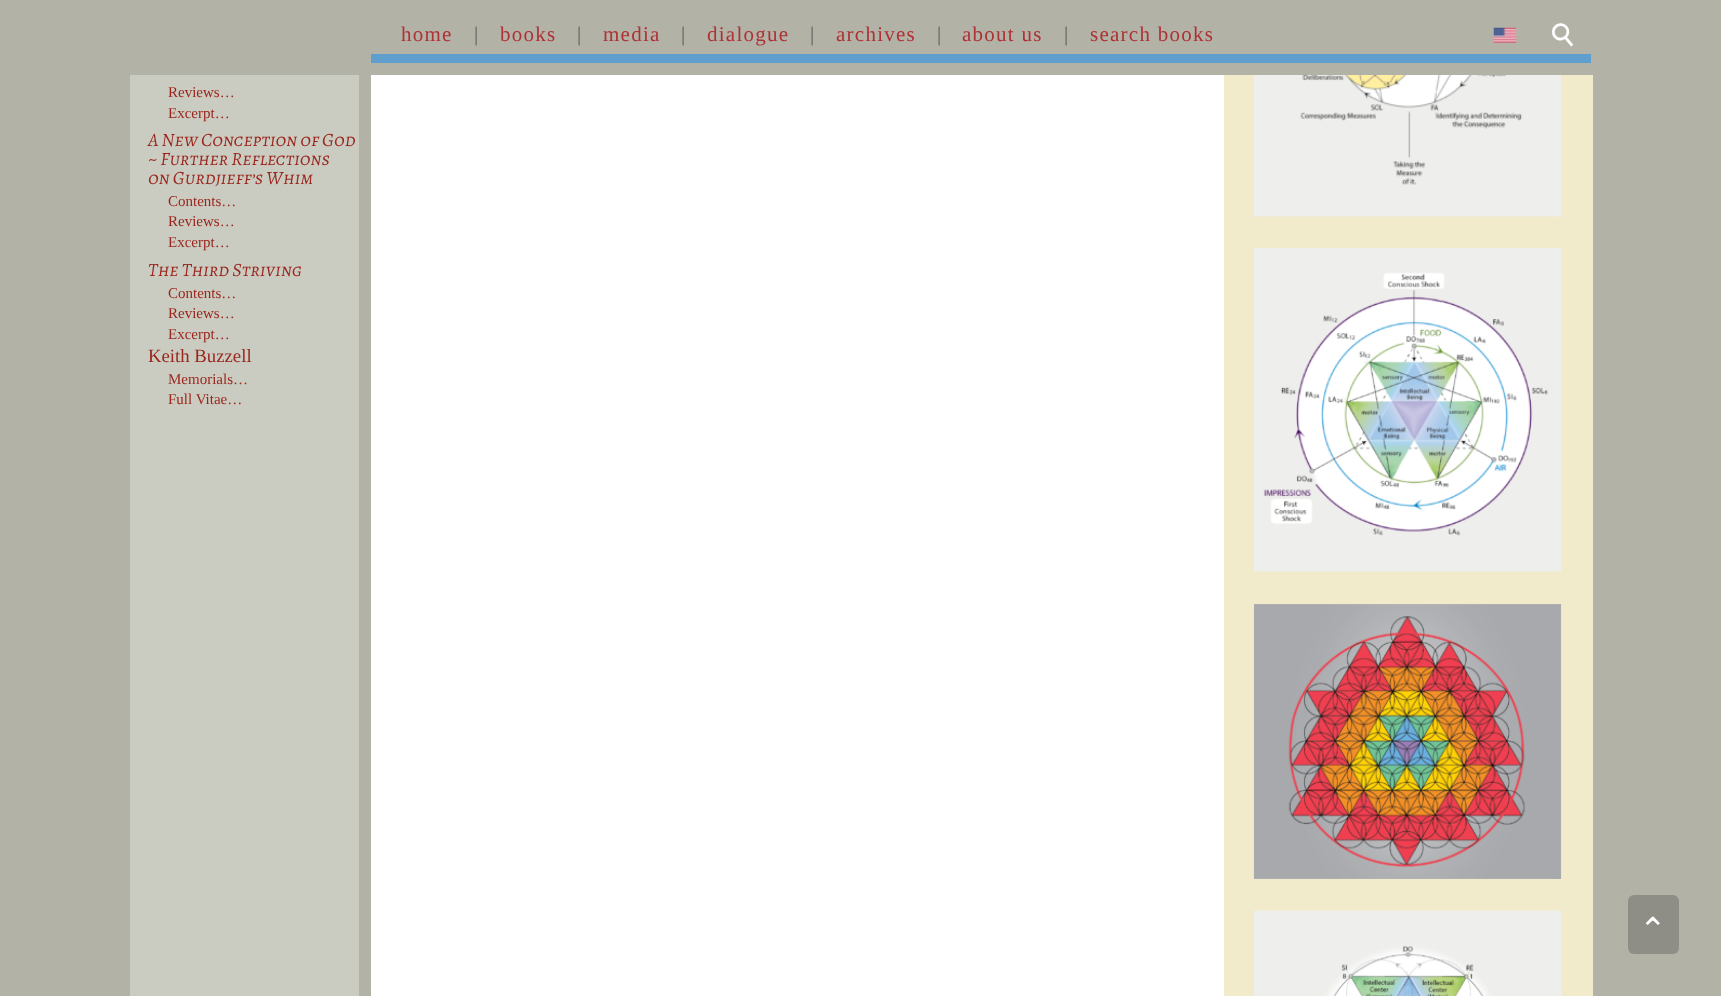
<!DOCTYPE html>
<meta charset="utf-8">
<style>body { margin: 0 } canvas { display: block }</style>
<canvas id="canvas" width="1721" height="996"></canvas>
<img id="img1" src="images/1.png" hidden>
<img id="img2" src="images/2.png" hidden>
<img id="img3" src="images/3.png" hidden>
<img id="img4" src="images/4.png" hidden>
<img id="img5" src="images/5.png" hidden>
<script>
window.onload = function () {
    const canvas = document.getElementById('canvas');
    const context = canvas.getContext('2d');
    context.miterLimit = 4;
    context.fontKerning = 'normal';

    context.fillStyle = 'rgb(179, 178, 167)';
    context.fillRect(0, 0, 1721, 996);
    context.fillStyle = 'rgb(94, 159, 206)';
    context.fillRect(371, 54, 1220, 9);
    context.drawImage(document.getElementById('img1'), 1493, 27, 24, 16);
    context.fillStyle = 'rgb(203, 204, 193)';
    context.fillRect(130, 75, 229, 921);
    context.fillStyle = 'rgb(255, 255, 255)';
    context.fillRect(371, 75, 853, 921);
    context.fillStyle = 'rgb(242, 235, 203)';
    context.fillRect(1224, 75, 369, 921);
    context.drawImage(document.getElementById('img2'), 1254, 75, 307, 142);
    context.drawImage(document.getElementById('img3'), 1254, 248, 307, 324);
    context.drawImage(document.getElementById('img4'), 1253, 604, 309, 275);
    context.drawImage(document.getElementById('img5'), 1254, 910, 307, 86);
    context.fillStyle = 'rgb(143, 142, 134)';
    context.beginPath();
    context.roundRect(1628, 895, 51, 59, 6);
    context.fill();
    context.letterSpacing = '1.25px';
    context.font = '21px Liberation Serif';
    context.fillStyle = 'rgb(174, 49, 53)';
    context.fillText('home', 401, 41);
    context.fillStyle = 'rgb(93, 94, 93)';
    context.fillText('|', 474, 41);
    context.fillStyle = 'rgb(174, 49, 53)';
    context.fillText('books', 500, 41);
    context.fillStyle = 'rgb(93, 94, 93)';
    context.fillText('|', 577, 41);
    context.fillStyle = 'rgb(174, 49, 53)';
    context.fillText('media', 603, 41);
    context.fillStyle = 'rgb(93, 94, 93)';
    context.fillText('|', 681, 41);
    context.fillStyle = 'rgb(174, 49, 53)';
    context.fillText('dialogue', 707, 41);
    context.fillStyle = 'rgb(93, 94, 93)';
    context.fillText('|', 810, 41);
    context.fillStyle = 'rgb(174, 49, 53)';
    context.fillText('archives', 836, 41);
    context.fillStyle = 'rgb(93, 94, 93)';
    context.fillText('|', 937, 41);
    context.fillStyle = 'rgb(174, 49, 53)';
    context.fillText('about us', 962, 41);
    context.fillStyle = 'rgb(93, 94, 93)';
    context.fillText('|', 1064, 41);
    context.fillStyle = 'rgb(174, 49, 53)';
    context.fillText('search books', 1090, 41);
    context.font = '31px DejaVu Sans';
    context.fillStyle = 'rgb(255, 255, 255)';
    context.save();
    context.translate(1561, 50);
    context.rotate(-40 * Math.PI / 180);
    context.fillText('⚲', 0, 0);
    context.restore();
    context.letterSpacing = '0px';
    context.font = '15px Liberation Serif';
    context.fillStyle = 'rgb(154, 38, 30)';
    context.fillText('Reviews…', 168, 97);
    context.fillText('Excerpt…', 168, 118);
    context.font = 'italic 18.75px Alegreya SC';
    context.fillText('A New Conception of God', 148, 146);
    context.fillText('~ Further Reflections', 148, 165);
    context.fillText('on Gurdjieff’s Whim', 148, 184);
    context.font = '15px Liberation Serif';
    context.fillText('Contents…', 168, 206);
    context.fillText('Reviews…', 168, 226);
    context.fillText('Excerpt…', 168, 247);
    context.font = 'italic 18.75px Alegreya SC';
    context.fillText('The Third Striving', 148, 276);
    context.font = '15px Liberation Serif';
    context.fillText('Contents…', 168, 298);
    context.fillText('Reviews…', 168, 318);
    context.fillText('Excerpt…', 168, 339);
    context.font = '18.75px Liberation Serif';
    context.fillText('Keith Buzzell', 148, 362);
    context.font = '15px Liberation Serif';
    context.fillText('Memorials…', 168, 384);
    context.fillText('Full Vitae…', 168, 404);
    context.font = '33px DejaVu Sans';
    context.fillStyle = 'rgb(255, 255, 255)';
    context.fillText('⌃', 1639, 941);
};
</script>
